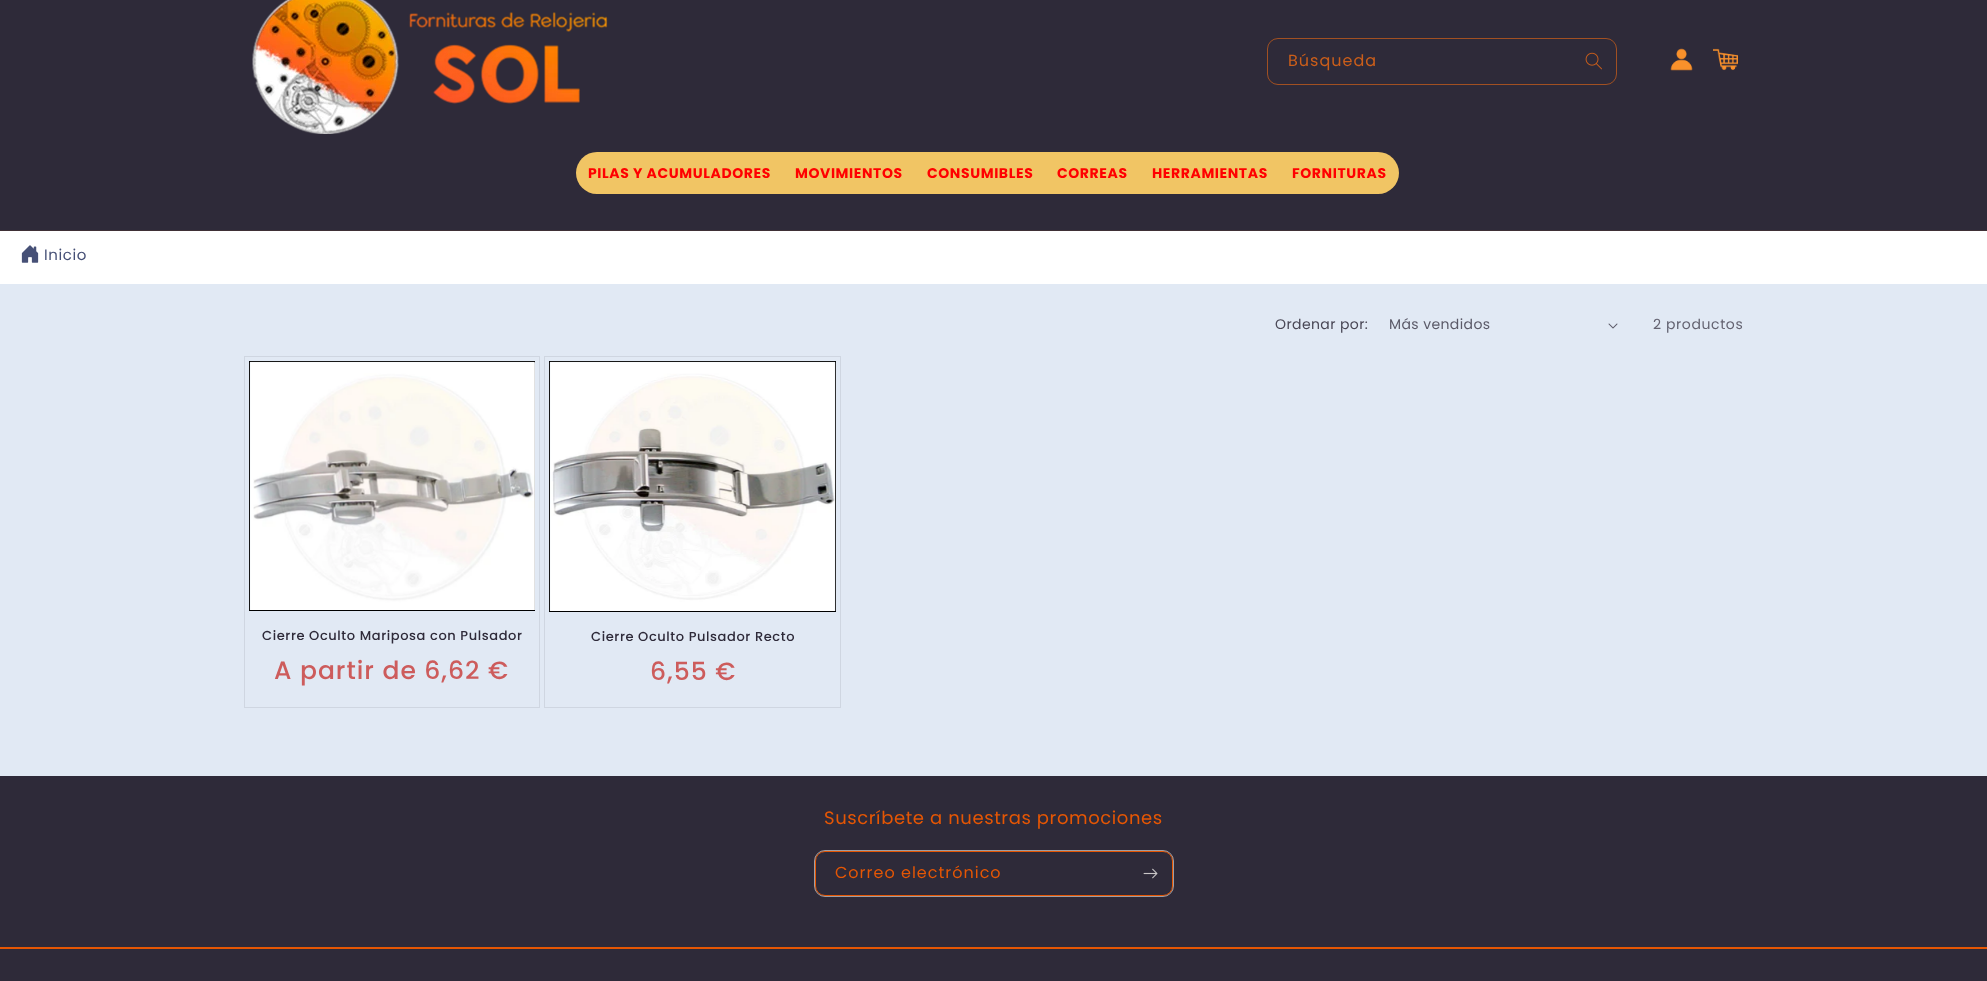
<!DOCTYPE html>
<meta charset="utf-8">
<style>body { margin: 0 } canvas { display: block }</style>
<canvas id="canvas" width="1987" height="981"></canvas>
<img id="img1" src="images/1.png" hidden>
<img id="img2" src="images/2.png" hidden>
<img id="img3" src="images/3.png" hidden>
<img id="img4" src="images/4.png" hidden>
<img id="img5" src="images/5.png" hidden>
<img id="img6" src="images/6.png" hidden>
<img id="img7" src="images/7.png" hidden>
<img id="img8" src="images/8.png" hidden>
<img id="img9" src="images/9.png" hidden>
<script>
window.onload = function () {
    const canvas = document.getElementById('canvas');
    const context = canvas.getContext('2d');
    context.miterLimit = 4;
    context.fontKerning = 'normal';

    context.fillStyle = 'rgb(225, 233, 244)';
    context.fillRect(0, 0, 1987, 981);
    context.fillStyle = 'rgb(46, 42, 57)';
    context.fillRect(0, 0, 1987, 230);
    context.fillStyle = 'rgb(63, 48, 54)';
    context.fillRect(0, 230, 1987, 1);
    context.drawImage(document.getElementById('img1'), 252, 0, 356, 134);
    context.drawImage(document.getElementById('img2'), 1585, 52, 17, 18);
    context.beginPath();
    context.roundRect(1267.5, 38.5, 349, 46, 10.5);
    context.strokeStyle = 'rgb(161, 80, 34)';
    context.stroke();
    context.drawImage(document.getElementById('img3'), 1670, 48, 23, 23);
    context.drawImage(document.getElementById('img4'), 1713, 48, 25, 23);
    context.fillStyle = 'rgb(241, 197, 100)';
    context.beginPath();
    context.roundRect(576, 152, 823, 42, 21);
    context.fill();
    context.fillStyle = 'rgb(255, 255, 255)';
    context.fillRect(0, 231, 1987, 53);
    context.drawImage(document.getElementById('img5'), 21, 245, 18, 18);
    context.drawImage(document.getElementById('img6'), 1608, 323, 10, 6);
    context.strokeStyle = 'rgb(207, 214, 225)';
    context.strokeRect(244.5, 356.5, 295, 351);
    context.strokeStyle = 'rgb(0, 0, 0)';
    context.strokeRect(249.5, 361.5, 285, 249);
    context.drawImage(document.getElementById('img7'), 249, 361, 286, 249);
    context.strokeStyle = 'rgb(207, 214, 225)';
    context.strokeRect(544.5, 356.5, 296, 351);
    context.strokeStyle = 'rgb(0, 0, 0)';
    context.strokeRect(549.5, 361.5, 286, 250);
    context.drawImage(document.getElementById('img8'), 549, 361, 287, 250);
    context.fillStyle = 'rgb(46, 42, 57)';
    context.fillRect(0, 776, 1987, 205);
    context.beginPath();
    context.roundRect(815.5, 851.5, 357, 44, 9.5);
    context.strokeStyle = 'rgb(229, 86, 4)';
    context.stroke();
    context.beginPath();
    context.roundRect(814.5, 850.5, 359, 46, 10.5);
    context.strokeStyle = 'rgba(253, 251, 247, 0.55)';
    context.stroke();
    context.drawImage(document.getElementById('img9'), 1143, 868, 15, 11);
    context.fillStyle = 'rgb(229, 86, 4)';
    context.fillRect(0, 947, 1987, 2);
    context.letterSpacing = '1px';
    context.font = '16px Poppins';
    context.fillStyle = 'rgb(203, 94, 26)';
    context.fillText('Búsqueda', 1288, 66);
    context.letterSpacing = '0.6px';
    context.font = 'bold 14px Poppins';
    context.fillStyle = 'rgb(255, 0, 0)';
    context.fillText('PILAS Y ACUMULADORES', 588, 178);
    context.fillText('MOVIMIENTOS', 795, 178);
    context.fillText('CONSUMIBLES', 927, 178);
    context.fillText('CORREAS', 1057, 178);
    context.fillText('HERRAMIENTAS', 1152, 178);
    context.fillText('FORNITURAS', 1292, 178);
    context.font = '15px Poppins';
    context.fillStyle = 'rgb(70, 80, 118)';
    context.fillText('Inicio', 44, 260);
    context.letterSpacing = '0.4px';
    context.font = '14px Poppins';
    context.fillStyle = 'rgb(73, 71, 85)';
    context.fillText('Ordenar por:', 1275, 329);
    context.fillStyle = 'rgb(91, 90, 104)';
    context.fillText('Más vendidos', 1389, 329);
    context.letterSpacing = '0.6px';
    context.fillStyle = 'rgb(100, 99, 113)';
    context.fillText('2 productos', 1653, 329);
    context.font = '500 13px Poppins';
    context.fillStyle = 'rgb(46, 42, 57)';
    context.fillText('Cierre Oculto Mariposa con Pulsador', 262, 640);
    context.letterSpacing = '1px';
    context.font = '500 25px Poppins';
    context.fillStyle = 'rgb(205, 92, 92)';
    context.fillText('A partir de 6,62 €', 274, 679);
    context.letterSpacing = '0.6px';
    context.font = '500 13px Poppins';
    context.fillStyle = 'rgb(46, 42, 57)';
    context.fillText('Cierre Oculto Pulsador Recto', 591, 641);
    context.letterSpacing = '1px';
    context.font = '500 25px Poppins';
    context.fillStyle = 'rgb(205, 92, 92)';
    context.fillText('6,55 €', 650, 680);
    context.letterSpacing = '0.6px';
    context.font = '18px Poppins';
    context.fillStyle = 'rgb(229, 86, 4)';
    context.fillText('Suscríbete a nuestras promociones', 824, 824);
    context.letterSpacing = '1px';
    context.font = '16px Poppins';
    context.fillText('Correo electrónico', 835, 878);
};
</script>
